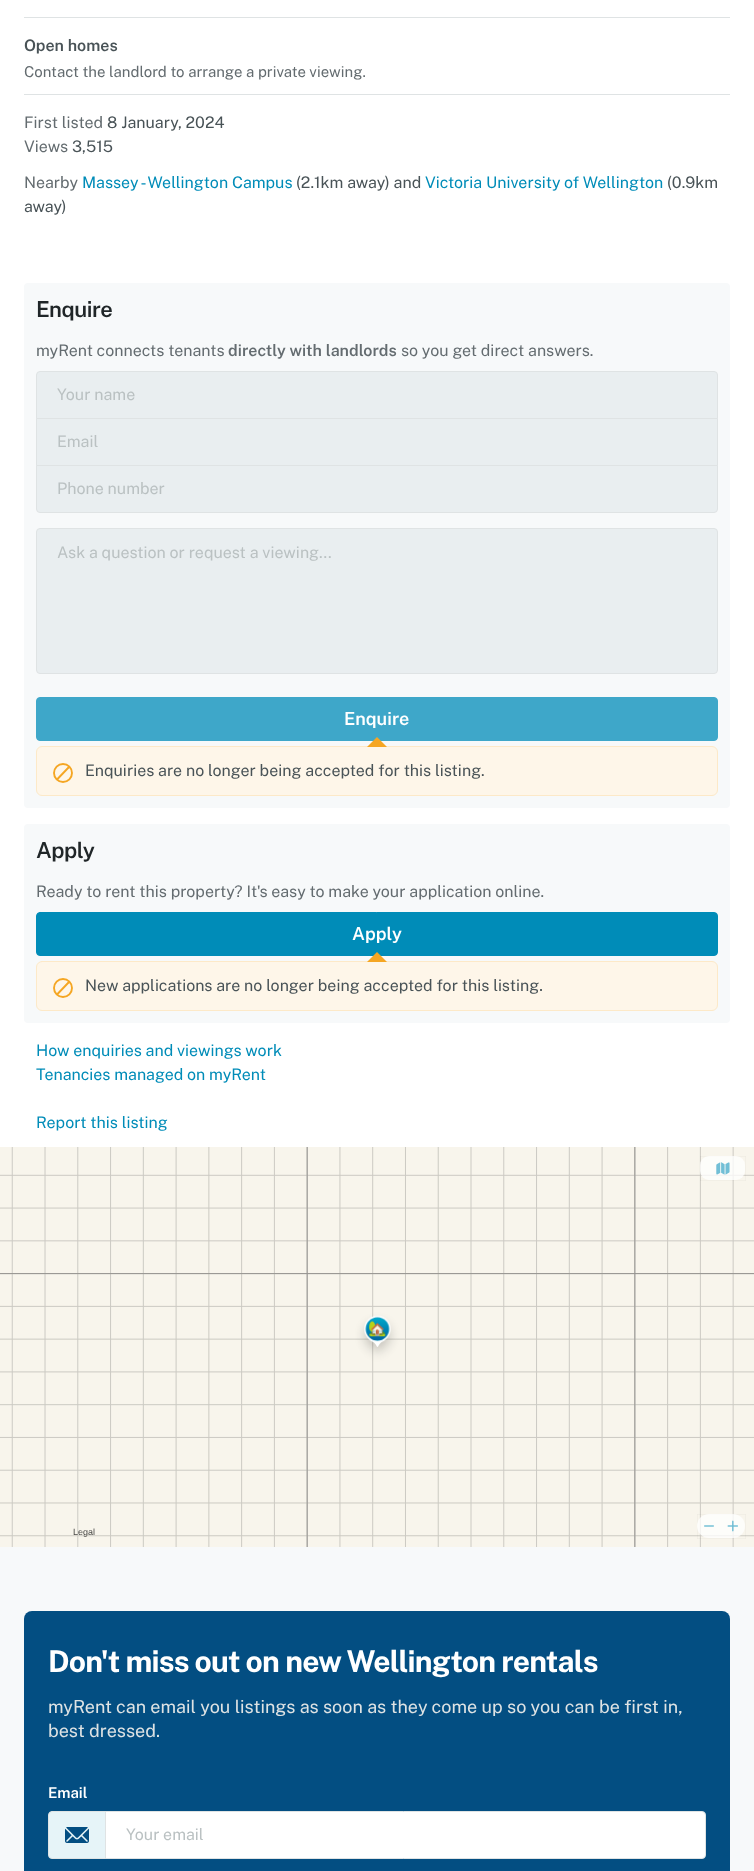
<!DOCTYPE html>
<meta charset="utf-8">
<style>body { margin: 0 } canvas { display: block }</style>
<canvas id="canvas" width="754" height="1871"></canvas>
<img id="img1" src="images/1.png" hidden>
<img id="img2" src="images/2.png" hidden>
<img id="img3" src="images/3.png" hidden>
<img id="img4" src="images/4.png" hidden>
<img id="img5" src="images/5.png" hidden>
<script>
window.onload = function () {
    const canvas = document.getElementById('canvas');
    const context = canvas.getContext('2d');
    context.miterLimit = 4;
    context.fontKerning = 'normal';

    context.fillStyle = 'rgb(255, 255, 255)';
    context.fillRect(0, 0, 754, 1871);
    context.fillStyle = 'rgb(223, 227, 228)';
    context.fillRect(24, 17, 706, 1);
    context.fillRect(24, 94, 706, 1);
    context.fillStyle = 'rgb(247, 249, 250)';
    context.beginPath();
    context.roundRect(24, 283, 706, 525, 4);
    context.fill();
    context.fillStyle = 'rgb(233, 238, 240)';
    context.beginPath();
    context.roundRect(36.5, 371.5, 681, 47, [3.5, 3.5, 0, 0]);
    context.fill();
    context.strokeStyle = 'rgb(223, 227, 228)';
    context.stroke();
    context.beginPath();
    context.rect(36.5, 418.5, 681, 47);
    context.fill();
    context.stroke();
    context.beginPath();
    context.roundRect(36.5, 465.5, 681, 47, [0, 0, 3.5, 3.5]);
    context.fill();
    context.stroke();
    context.beginPath();
    context.roundRect(36.5, 528.5, 681, 145, 3.5);
    context.fill();
    context.stroke();
    context.fillStyle = 'rgb(62, 167, 201)';
    context.beginPath();
    context.roundRect(36.5, 697.5, 681, 43, 3.5);
    context.fill();
    context.strokeStyle = 'rgb(62, 167, 201)';
    context.stroke();
    context.fillStyle = 'rgb(254, 246, 233)';
    context.beginPath();
    context.roundRect(36.5, 746.5, 681, 49, 5.5);
    context.fill();
    context.strokeStyle = 'rgb(253, 233, 200)';
    context.stroke();
    context.fillStyle = 'rgb(245, 166, 35)';
    context.beginPath();
    context.moveTo(387, 747);
    context.lineTo(367, 747);
    context.lineTo(377, 737);
    context.closePath();
    context.fill();
    context.beginPath();
    context.arc(63, 773, 9, 0, 2 * Math.PI);
    context.strokeStyle = 'rgb(245, 166, 35)';
    context.lineWidth = 1.9;
    context.stroke();
    context.beginPath();
    context.moveTo(57.5, 779);
    context.lineTo(69, 767);
    context.lineCap = 'round';
    context.lineJoin = 'round';
    context.stroke();
    context.fillStyle = 'rgb(247, 249, 250)';
    context.beginPath();
    context.roundRect(24, 824, 706, 199, 4);
    context.fill();
    context.fillStyle = 'rgb(0, 140, 184)';
    context.beginPath();
    context.roundRect(36.5, 912.5, 681, 43, 3.5);
    context.fill();
    context.strokeStyle = 'rgb(0, 140, 184)';
    context.lineWidth = 1;
    context.lineJoin = 'miter';
    context.stroke();
    context.fillStyle = 'rgb(254, 246, 233)';
    context.beginPath();
    context.roundRect(36.5, 961.5, 681, 49, 5.5);
    context.fill();
    context.strokeStyle = 'rgb(253, 233, 200)';
    context.stroke();
    context.fillStyle = 'rgb(245, 166, 35)';
    context.beginPath();
    context.moveTo(387, 962);
    context.lineTo(367, 962);
    context.lineTo(377, 952);
    context.closePath();
    context.fill();
    context.beginPath();
    context.arc(63, 988, 9, 0, 2 * Math.PI);
    context.strokeStyle = 'rgb(245, 166, 35)';
    context.lineWidth = 1.9;
    context.stroke();
    context.beginPath();
    context.moveTo(57.5, 994);
    context.lineTo(69, 982);
    context.lineJoin = 'round';
    context.stroke();
    context.drawImage(document.getElementById('img1'), 0, 1147, 754, 400);
    context.strokeStyle = 'rgba(0, 0, 0, 0.05)';
    context.lineWidth = 0.5;
    context.lineJoin = 'miter';
    context.strokeRect(700.25, 1156.25, 45.5, 24.5);
    context.fillStyle = 'rgba(255, 255, 255, 0.75)';
    context.beginPath();
    context.roundRect(700, 1156, 45, 24, 9);
    context.fill();
    context.drawImage(document.getElementById('img2'), 716, 1162, 14, 13);
    context.strokeRect(697.25, 1514.25, 48.5, 24.5);
    context.beginPath();
    context.roundRect(697, 1514, 48, 24, 12);
    context.fill();
    context.drawImage(document.getElementById('img3'), 704, 1525, 10, 2);
    context.drawImage(document.getElementById('img4'), 727, 1520, 11, 12);
    context.fillStyle = 'rgb(247, 249, 250)';
    context.fillRect(0, 1547, 754, 324);
    context.fillStyle = 'rgb(3, 78, 130)';
    context.beginPath();
    context.roundRect(24, 1611, 706, 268, 8);
    context.fill();
    context.fillStyle = 'rgb(230, 244, 248)';
    context.beginPath();
    context.roundRect(48.5, 1811.5, 57, 47, [3.5, 0, 0, 3.5]);
    context.fill();
    context.strokeStyle = 'rgb(223, 227, 228)';
    context.lineWidth = 1;
    context.stroke();
    context.drawImage(document.getElementById('img5'), 65, 1827, 24, 16);
    context.fillStyle = 'rgb(255, 255, 255)';
    context.beginPath();
    context.roundRect(105.5, 1811.5, 600, 47, [0, 3.5, 3.5, 0]);
    context.fill();
    context.stroke();
    context.font = '600 16px Public Sans';
    context.fillStyle = 'rgb(73, 83, 87)';
    context.fillText('Open homes', 24, 51);
    context.font = '15px Public Sans';
    context.fillStyle = 'rgb(100, 108, 112)';
    context.fillText('Contact the landlord to arrange a private viewing.', 24, 77);
    context.font = '16px Public Sans';
    context.fillText('First listed', 24, 128);
    context.fillStyle = 'rgb(73, 83, 87)';
    context.fillText('8 January, 2024', 107, 128);
    context.fillStyle = 'rgb(100, 108, 112)';
    context.fillText('Views', 24, 152);
    context.fillStyle = 'rgb(73, 83, 87)';
    context.fillText('3,515', 72, 152);
    context.fillStyle = 'rgb(100, 108, 112)';
    context.fillText('Nearby', 24, 188);
    context.fillStyle = 'rgb(0, 140, 184)';
    context.fillText('Massey - Wellington Campus', 82, 188);
    context.fillStyle = 'rgb(73, 83, 87)';
    context.fillText('(2.1km away) and', 296, 188);
    context.fillStyle = 'rgb(0, 140, 184)';
    context.fillText('Victoria University of Wellington', 425, 188);
    context.fillStyle = 'rgb(73, 83, 87)';
    context.fillText('(0.9km', 667, 188);
    context.fillText('away)', 24, 212);
    context.letterSpacing = '-0.5px';
    context.font = '600 22px Public Sans';
    context.fillStyle = 'rgb(32, 38, 40)';
    context.fillText('Enquire', 36, 317);
    context.letterSpacing = '0px';
    context.font = '16px Public Sans';
    context.fillStyle = 'rgb(100, 108, 112)';
    context.fillText('myRent connects tenants', 36, 356);
    context.font = '600 16px Public Sans';
    context.fillText('directly with landlords', 228, 356);
    context.font = '16px Public Sans';
    context.fillText('so you get direct answers.', 401, 356);
    context.fillStyle = 'rgb(186, 193, 194)';
    context.fillText('Your name', 57, 400);
    context.fillText('Email', 57, 447);
    context.fillText('Phone number', 57, 494);
    context.fillText('Ask a question or request a viewing...', 57, 558);
    context.font = '600 18px Public Sans';
    context.fillStyle = 'rgb(255, 255, 255)';
    context.fillText('Enquire', 344, 725);
    context.font = '16px Public Sans';
    context.fillStyle = 'rgb(73, 83, 87)';
    context.fillText('Enquiries are no longer being accepted for this listing.', 85, 776);
    context.letterSpacing = '-0.5px';
    context.font = '600 22px Public Sans';
    context.fillStyle = 'rgb(32, 38, 40)';
    context.fillText('Apply', 36, 858);
    context.letterSpacing = '0px';
    context.font = '16px Public Sans';
    context.fillStyle = 'rgb(100, 108, 112)';
    context.fillText('Ready to rent this property? It\'s easy to make your application online.', 36, 897);
    context.font = '600 18px Public Sans';
    context.fillStyle = 'rgb(255, 255, 255)';
    context.fillText('Apply', 352, 940);
    context.font = '16px Public Sans';
    context.fillStyle = 'rgb(73, 83, 87)';
    context.fillText('New applications are no longer being accepted for this listing.', 85, 991);
    context.fillStyle = 'rgb(0, 140, 184)';
    context.fillText('How enquiries and viewings work', 36, 1056);
    context.fillText('Tenancies managed on myRent', 36, 1080);
    context.fillText('Report this listing', 36, 1128);
    context.font = '9px Liberation Sans';
    context.fillStyle = 'rgb(73, 73, 70)';
    context.fillText('Legal', 73, 1535);
    context.letterSpacing = '-0.75px';
    context.font = 'bold 30px Public Sans';
    context.fillStyle = 'rgb(255, 255, 255)';
    context.fillText('Don\'t miss out on new Wellington rentals', 48, 1672);
    context.letterSpacing = '0px';
    context.font = '18px Public Sans';
    context.fillStyle = 'rgb(223, 227, 228)';
    context.fillText('myRent can email you listings as soon as they come up so you can be first in,', 48, 1713);
    context.fillText('best dressed.', 48, 1737);
    context.font = '600 15px Public Sans';
    context.fillStyle = 'rgb(255, 255, 255)';
    context.fillText('Email', 48, 1798);
    context.font = '16px Public Sans';
    context.fillStyle = 'rgb(186, 193, 194)';
    context.fillText('Your email', 126, 1840);
};
</script>
